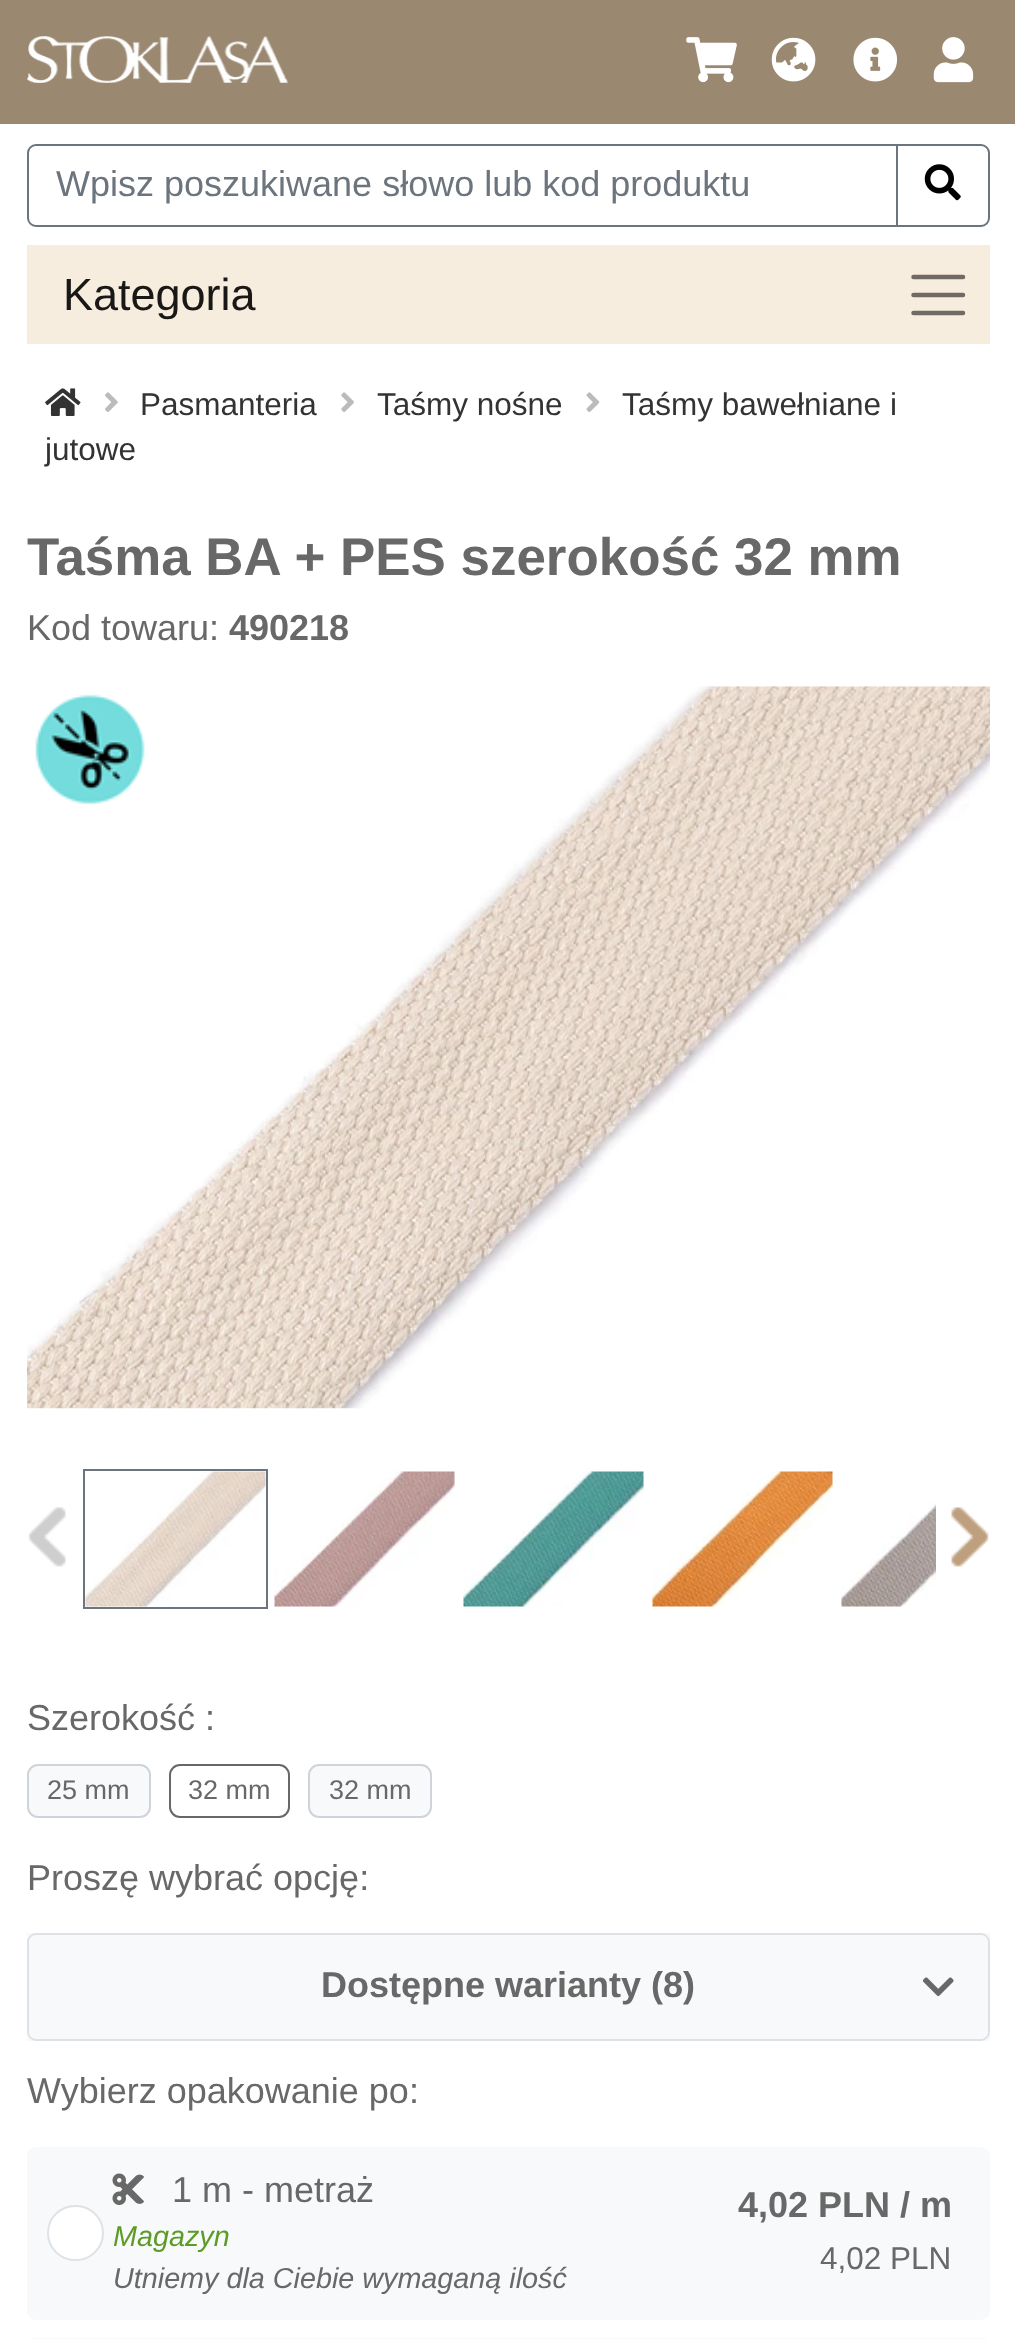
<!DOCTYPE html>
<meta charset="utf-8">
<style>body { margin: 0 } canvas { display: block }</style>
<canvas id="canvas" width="1015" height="2339"></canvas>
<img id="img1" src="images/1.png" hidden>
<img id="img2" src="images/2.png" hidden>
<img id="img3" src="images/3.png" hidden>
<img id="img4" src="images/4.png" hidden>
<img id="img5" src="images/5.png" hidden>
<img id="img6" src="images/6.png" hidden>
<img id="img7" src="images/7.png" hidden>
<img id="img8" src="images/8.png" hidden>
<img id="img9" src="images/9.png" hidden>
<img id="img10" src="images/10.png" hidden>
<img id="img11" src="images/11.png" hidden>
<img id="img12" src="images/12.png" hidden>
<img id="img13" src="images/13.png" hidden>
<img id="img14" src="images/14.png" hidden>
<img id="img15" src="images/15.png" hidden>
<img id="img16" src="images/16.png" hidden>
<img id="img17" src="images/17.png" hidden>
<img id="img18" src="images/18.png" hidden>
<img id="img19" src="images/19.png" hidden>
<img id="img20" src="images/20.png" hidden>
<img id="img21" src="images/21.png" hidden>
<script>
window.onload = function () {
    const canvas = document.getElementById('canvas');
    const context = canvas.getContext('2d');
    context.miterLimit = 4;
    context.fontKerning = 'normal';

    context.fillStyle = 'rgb(255, 255, 255)';
    context.fillRect(0, 0, 1015, 2339);
    context.fillStyle = 'rgb(154, 136, 112)';
    context.fillRect(0, 0, 1015, 124);
    context.drawImage(document.getElementById('img1'), 27, 36, 261, 47);
    context.drawImage(document.getElementById('img2'), 686, 37, 51, 46);
    context.drawImage(document.getElementById('img3'), 771, 37, 45, 45);
    context.drawImage(document.getElementById('img4'), 853, 37, 45, 45);
    context.drawImage(document.getElementById('img5'), 933, 37, 41, 46);
    context.beginPath();
    context.roundRect(28, 145, 869, 81, [8, 0, 0, 8]);
    context.strokeStyle = 'rgb(108, 117, 125)';
    context.lineWidth = 2;
    context.stroke();
    context.fillStyle = 'rgb(255, 255, 255)';
    context.beginPath();
    context.roundRect(897, 145, 92, 81, [0, 8, 8, 0]);
    context.fill();
    context.stroke();
    context.drawImage(document.getElementById('img6'), 924, 164, 37, 37);
    context.fillStyle = 'rgb(247, 237, 222)';
    context.fillRect(27, 245, 963, 99);
    context.beginPath();
    context.moveTo(913.5, 277);
    context.lineTo(963, 277);
    context.moveTo(913.5, 295);
    context.lineTo(963, 295);
    context.moveTo(913.5, 313);
    context.lineTo(963, 313);
    context.strokeStyle = 'rgb(111, 107, 100)';
    context.lineWidth = 4.5;
    context.lineCap = 'round';
    context.stroke();
    context.drawImage(document.getElementById('img7'), 45, 388, 36, 28);
    context.drawImage(document.getElementById('img8'), 105, 392, 13, 20);
    context.drawImage(document.getElementById('img9'), 341, 392, 13, 20);
    context.drawImage(document.getElementById('img10'), 586, 392, 14, 20);
    context.drawImage(document.getElementById('img11'), 27, 686, 963, 723);
    context.drawImage(document.getElementById('img12'), 35, 694, 110, 110);
    context.drawImage(document.getElementById('img13'), 28, 1507, 38, 60);
    context.strokeStyle = 'rgb(108, 117, 125)';
    context.lineWidth = 2;
    context.strokeRect(84, 1470, 183, 138);
    context.drawImage(document.getElementById('img14'), 85, 1471, 181, 136);
    context.drawImage(document.getElementById('img15'), 274, 1471, 181, 136);
    context.drawImage(document.getElementById('img16'), 463, 1471, 181, 136);
    context.drawImage(document.getElementById('img17'), 652, 1471, 181, 136);
    context.drawImage(document.getElementById('img18'), 841, 1503, 95, 104);
    context.drawImage(document.getElementById('img19'), 951, 1507, 38, 60);
    context.fillStyle = 'rgb(248, 249, 250)';
    context.beginPath();
    context.roundRect(28, 1765, 122, 52, 10);
    context.fill();
    context.strokeStyle = 'rgb(206, 212, 218)';
    context.stroke();
    context.beginPath();
    context.roundRect(170, 1765, 119, 52, 10);
    context.strokeStyle = 'rgb(104, 104, 104)';
    context.stroke();
    context.beginPath();
    context.roundRect(309, 1765, 122, 52, 10);
    context.fill();
    context.strokeStyle = 'rgb(206, 212, 218)';
    context.stroke();
    context.fillRect(27, 1933, 963, 108);
    context.beginPath();
    context.roundRect(28, 1934, 961, 106, 8);
    context.strokeStyle = 'rgb(222, 226, 230)';
    context.stroke();
    context.drawImage(document.getElementById('img20'), 922, 1977, 32, 20);
    context.beginPath();
    context.roundRect(27, 2147, 963, 173, 9);
    context.fill();
    context.fillStyle = 'rgb(255, 255, 255)';
    context.beginPath();
    context.roundRect(48, 2206, 55, 54, 27);
    context.fill();
    context.stroke();
    context.drawImage(document.getElementById('img21'), 112, 2173, 32, 32);
    context.beginPath();
    context.roundRect(28, 2339, 961, 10, 8);
    context.strokeStyle = 'rgb(248, 249, 250)';
    context.stroke();
    context.font = '36px Liberation Sans';
    context.fillStyle = 'rgb(108, 117, 125)';
    context.fillText('Wpisz poszukiwane słowo lub kod produktu', 56, 196);
    context.font = '45px Liberation Sans';
    context.fillStyle = 'rgb(25, 24, 22)';
    context.fillText('Kategoria', 63, 310);
    context.font = '31.5px Liberation Sans';
    context.fillStyle = 'rgb(51, 51, 51)';
    context.fillText('Pasmanteria', 140, 415);
    context.fillText('Taśmy nośne', 377, 415);
    context.fillText('Taśmy bawełniane i', 622, 415);
    context.fillText('jutowe', 45, 460);
    context.font = 'bold 52.9px Liberation Sans';
    context.fillStyle = 'rgb(104, 104, 104)';
    context.fillText('Taśma BA + PES szerokość 32 mm', 27, 575);
    context.font = '36px Liberation Sans';
    context.fillText('Kod towaru:', 27, 640);
    context.font = 'bold 36px Liberation Sans';
    context.fillText('490218', 229, 640);
    context.font = '36px Liberation Sans';
    context.fillText('Szerokość :', 27, 1730);
    context.font = '27px Liberation Sans';
    context.fillText('25 mm', 47, 1799);
    context.fillText('32 mm', 188, 1799);
    context.fillText('32 mm', 329, 1799);
    context.font = '36px Liberation Sans';
    context.fillText('Proszę wybrać opcję:', 27, 1890);
    context.font = 'bold 36px Liberation Sans';
    context.fillText('Dostępne warianty (8)', 321, 1997);
    context.font = '36px Liberation Sans';
    context.fillText('Wybierz opakowanie po:', 27, 2103);
    context.fillText('1 m - metraż', 172, 2202);
    context.font = 'italic 28.75px Liberation Sans';
    context.fillStyle = 'rgb(93, 155, 38)';
    context.fillText('Magazyn', 113, 2246);
    context.fillStyle = 'rgb(104, 104, 104)';
    context.fillText('Utniemy dla Ciebie wymaganą ilość', 113, 2288);
    context.font = 'bold 36px Liberation Sans';
    context.fillText('4,02 PLN / m', 738, 2217);
    context.font = '31.5px Liberation Sans';
    context.fillText('4,02 PLN', 820, 2269);
};
</script>
